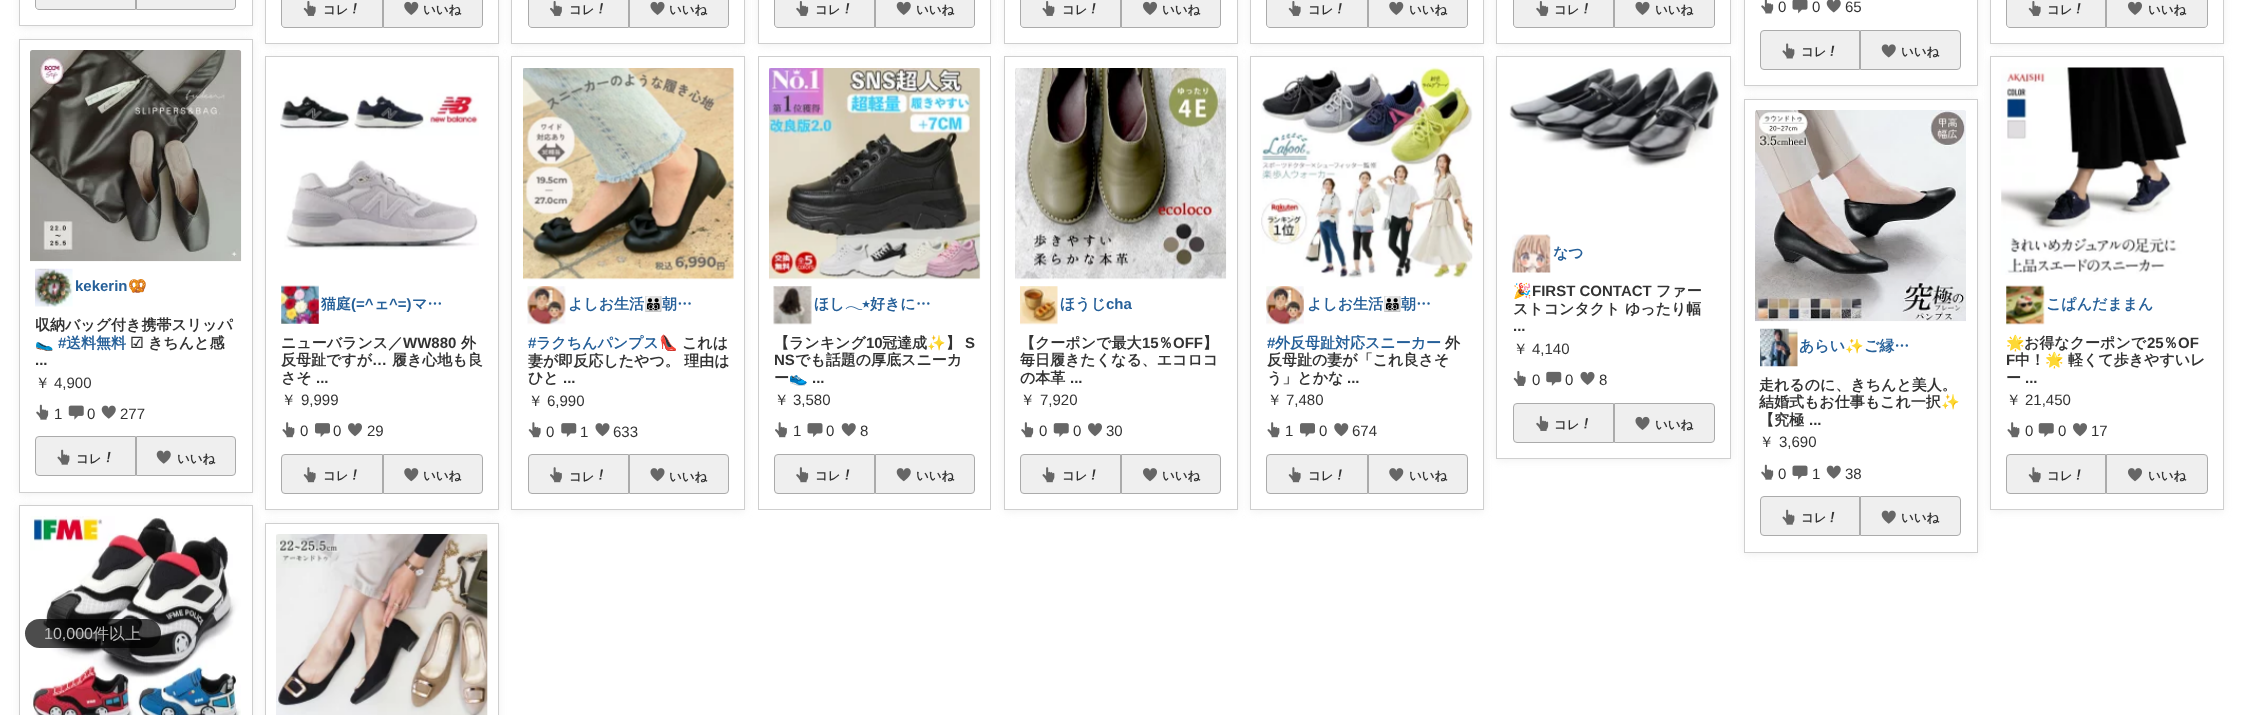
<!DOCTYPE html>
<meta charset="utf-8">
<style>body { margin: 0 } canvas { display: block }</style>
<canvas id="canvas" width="2242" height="715"></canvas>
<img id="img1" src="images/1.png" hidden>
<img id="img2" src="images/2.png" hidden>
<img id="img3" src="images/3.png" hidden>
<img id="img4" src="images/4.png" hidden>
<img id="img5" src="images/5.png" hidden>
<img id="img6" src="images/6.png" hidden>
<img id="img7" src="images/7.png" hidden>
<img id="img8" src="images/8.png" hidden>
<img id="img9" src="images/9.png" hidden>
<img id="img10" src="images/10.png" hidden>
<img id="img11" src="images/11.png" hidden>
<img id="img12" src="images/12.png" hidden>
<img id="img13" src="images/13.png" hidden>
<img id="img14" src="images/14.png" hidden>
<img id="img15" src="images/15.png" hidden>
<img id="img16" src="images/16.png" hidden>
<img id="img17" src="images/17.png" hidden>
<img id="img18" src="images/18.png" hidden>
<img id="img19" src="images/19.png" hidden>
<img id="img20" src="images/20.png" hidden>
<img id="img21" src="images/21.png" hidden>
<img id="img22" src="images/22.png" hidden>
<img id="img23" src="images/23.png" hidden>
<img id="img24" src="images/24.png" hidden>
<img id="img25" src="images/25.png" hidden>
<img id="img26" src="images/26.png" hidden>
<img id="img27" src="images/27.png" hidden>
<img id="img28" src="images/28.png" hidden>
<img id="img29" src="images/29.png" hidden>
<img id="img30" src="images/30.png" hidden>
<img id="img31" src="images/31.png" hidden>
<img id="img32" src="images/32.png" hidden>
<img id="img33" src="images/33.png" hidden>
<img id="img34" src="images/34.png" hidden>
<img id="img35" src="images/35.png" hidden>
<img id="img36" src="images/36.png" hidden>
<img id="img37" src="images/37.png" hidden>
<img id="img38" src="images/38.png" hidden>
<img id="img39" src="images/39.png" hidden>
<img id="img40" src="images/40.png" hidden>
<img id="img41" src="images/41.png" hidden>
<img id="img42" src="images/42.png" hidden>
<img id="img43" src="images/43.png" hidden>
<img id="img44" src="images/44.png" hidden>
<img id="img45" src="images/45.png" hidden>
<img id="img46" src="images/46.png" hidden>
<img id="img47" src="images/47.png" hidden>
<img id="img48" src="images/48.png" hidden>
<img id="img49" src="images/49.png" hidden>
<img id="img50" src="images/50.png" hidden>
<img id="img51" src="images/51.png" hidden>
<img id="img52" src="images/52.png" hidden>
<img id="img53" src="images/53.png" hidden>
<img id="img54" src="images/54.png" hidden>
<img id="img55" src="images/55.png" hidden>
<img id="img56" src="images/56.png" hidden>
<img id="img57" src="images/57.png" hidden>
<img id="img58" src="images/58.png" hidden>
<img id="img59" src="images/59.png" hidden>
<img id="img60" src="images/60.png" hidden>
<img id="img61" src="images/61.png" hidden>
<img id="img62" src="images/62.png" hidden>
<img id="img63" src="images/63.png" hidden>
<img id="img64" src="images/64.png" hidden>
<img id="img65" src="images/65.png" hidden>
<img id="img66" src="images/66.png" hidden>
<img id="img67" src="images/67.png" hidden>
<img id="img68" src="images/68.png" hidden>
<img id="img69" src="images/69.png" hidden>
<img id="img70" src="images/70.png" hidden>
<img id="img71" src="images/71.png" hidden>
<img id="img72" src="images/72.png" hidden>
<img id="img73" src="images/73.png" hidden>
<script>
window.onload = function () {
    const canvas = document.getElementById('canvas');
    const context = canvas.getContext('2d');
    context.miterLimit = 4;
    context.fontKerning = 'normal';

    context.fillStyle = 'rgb(255, 255, 255)';
    context.fillRect(0, 0, 2242, 715);
    context.fillStyle = 'rgb(239, 239, 239)';
    context.filter = 'blur(4px)';
    context.beginPath();
    context.roundRect(19, -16, 234, 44, 4);
    context.fill();
    context.filter = 'none';
    context.fillStyle = 'rgb(255, 255, 255)';
    context.beginPath();
    context.roundRect(19, -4, 234, 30, 4);
    context.fill();
    context.strokeStyle = 'rgb(207, 207, 207)';
    context.strokeRect(19.5, -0.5, 233, 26);
    context.fillStyle = 'rgb(239, 239, 239)';
    context.beginPath();
    context.moveTo(39, -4.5);
    context.lineTo(135.5, -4.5);
    context.lineTo(135.5, 9.5);
    context.lineTo(39, 9.5);
    context.bezierCurveTo(37, 9.5, 35.5, 8, 35.5, 6);
    context.lineTo(35.5, -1);
    context.bezierCurveTo(35.5, -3, 37, -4.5, 39, -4.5);
    context.closePath();
    context.fill();
    context.strokeStyle = 'rgb(171, 171, 171)';
    context.stroke();
    context.beginPath();
    context.moveTo(136.5, -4.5);
    context.lineTo(232, -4.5);
    context.bezierCurveTo(234, -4.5, 235.5, -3, 235.5, -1);
    context.lineTo(235.5, 6);
    context.bezierCurveTo(235.5, 8, 234, 9.5, 232, 9.5);
    context.lineTo(136.5, 9.5);
    context.closePath();
    context.fill();
    context.stroke();
    context.filter = 'blur(4px)';
    context.beginPath();
    context.roundRect(19, 40, 234, 454, 4);
    context.fill();
    context.filter = 'none';
    context.fillStyle = 'rgb(255, 255, 255)';
    context.beginPath();
    context.roundRect(19, 39, 234, 454, 4);
    context.fill();
    context.strokeStyle = 'rgb(207, 207, 207)';
    context.strokeRect(19.5, 39.5, 233, 453);
    context.drawImage(document.getElementById('img1'), 30, 50, 212, 212);
    context.drawImage(document.getElementById('img2'), 35, 268, 38, 39);
    context.drawImage(document.getElementById('img3'), 36, 404, 13, 16);
    context.drawImage(document.getElementById('img4'), 68, 405, 16, 15);
    context.drawImage(document.getElementById('img5'), 101, 405, 15, 14);
    context.fillStyle = 'rgb(239, 239, 239)';
    context.beginPath();
    context.roundRect(35.5, 436.5, 100, 39, [3.5, 0, 0, 3.5]);
    context.fill();
    context.strokeStyle = 'rgb(171, 171, 171)';
    context.stroke();
    context.drawImage(document.getElementById('img6'), 57, 449, 13, 16);
    context.drawImage(document.getElementById('img7'), 106, 451, 5, 12);
    context.beginPath();
    context.roundRect(136.5, 436.5, 99, 39, [0, 3.5, 3.5, 0]);
    context.fill();
    context.stroke();
    context.drawImage(document.getElementById('img8'), 156, 450, 15, 14);
    context.filter = 'blur(4px)';
    context.beginPath();
    context.roundRect(19, 506, 234, 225, 4);
    context.fill();
    context.filter = 'none';
    context.fillStyle = 'rgb(255, 255, 255)';
    context.beginPath();
    context.roundRect(19, 505, 234, 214, 4);
    context.fill();
    context.strokeStyle = 'rgb(207, 207, 207)';
    context.strokeRect(19.5, 505.5, 233, 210);
    context.drawImage(document.getElementById('img9'), 30, 516, 211, 199);
    context.fillStyle = 'rgb(239, 239, 239)';
    context.filter = 'blur(4px)';
    context.beginPath();
    context.roundRect(265, -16, 234, 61, 4);
    context.fill();
    context.filter = 'none';
    context.fillStyle = 'rgb(255, 255, 255)';
    context.beginPath();
    context.roundRect(265, -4, 234, 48, 4);
    context.fill();
    context.strokeRect(265.5, -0.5, 233, 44);
    context.fillStyle = 'rgb(239, 239, 239)';
    context.beginPath();
    context.moveTo(285, -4.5);
    context.lineTo(382.5, -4.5);
    context.lineTo(382.5, 27.5);
    context.lineTo(285, 27.5);
    context.bezierCurveTo(283, 27.5, 281.5, 26, 281.5, 24);
    context.lineTo(281.5, -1);
    context.bezierCurveTo(281.5, -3, 283, -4.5, 285, -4.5);
    context.closePath();
    context.fill();
    context.strokeStyle = 'rgb(171, 171, 171)';
    context.stroke();
    context.drawImage(document.getElementById('img10'), 303, 1, 13, 15);
    context.drawImage(document.getElementById('img11'), 353, 3, 4, 11);
    context.beginPath();
    context.moveTo(383.5, -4.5);
    context.lineTo(479, -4.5);
    context.bezierCurveTo(481, -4.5, 482.5, -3, 482.5, -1);
    context.lineTo(482.5, 24);
    context.bezierCurveTo(482.5, 26, 481, 27.5, 479, 27.5);
    context.lineTo(383.5, 27.5);
    context.closePath();
    context.fill();
    context.stroke();
    context.drawImage(document.getElementById('img12'), 404, 1, 15, 14);
    context.filter = 'blur(4px)';
    context.beginPath();
    context.roundRect(265, 58, 234, 453, 4);
    context.fill();
    context.filter = 'none';
    context.fillStyle = 'rgb(255, 255, 255)';
    context.beginPath();
    context.roundRect(265, 56, 234, 454, 4);
    context.fill();
    context.strokeStyle = 'rgb(207, 207, 207)';
    context.strokeRect(265.5, 56.5, 233, 453);
    context.drawImage(document.getElementById('img13'), 280, 93, 199, 157);
    context.drawImage(document.getElementById('img14'), 281, 285, 38, 39);
    context.drawImage(document.getElementById('img15'), 282, 422, 13, 16);
    context.drawImage(document.getElementById('img16'), 315, 423, 15, 14);
    context.drawImage(document.getElementById('img17'), 348, 423, 14, 14);
    context.fillStyle = 'rgb(239, 239, 239)';
    context.beginPath();
    context.roundRect(281.5, 454.5, 101, 39, [3.5, 0, 0, 3.5]);
    context.fill();
    context.strokeStyle = 'rgb(171, 171, 171)';
    context.stroke();
    context.drawImage(document.getElementById('img18'), 303, 467, 13, 16);
    context.drawImage(document.getElementById('img19'), 353, 469, 4, 11);
    context.beginPath();
    context.roundRect(383.5, 454.5, 99, 39, [0, 3.5, 3.5, 0]);
    context.fill();
    context.stroke();
    context.drawImage(document.getElementById('img20'), 404, 468, 15, 14);
    context.filter = 'blur(4px)';
    context.beginPath();
    context.roundRect(265, 524, 234, 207, 4);
    context.fill();
    context.filter = 'none';
    context.fillStyle = 'rgb(255, 255, 255)';
    context.beginPath();
    context.roundRect(265, 523, 234, 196, 4);
    context.fill();
    context.strokeStyle = 'rgb(207, 207, 207)';
    context.strokeRect(265.5, 523.5, 233, 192);
    context.drawImage(document.getElementById('img21'), 276, 534, 212, 181);
    context.fillStyle = 'rgb(239, 239, 239)';
    context.filter = 'blur(4px)';
    context.beginPath();
    context.roundRect(511, -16, 234, 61, 4);
    context.fill();
    context.filter = 'none';
    context.fillStyle = 'rgb(255, 255, 255)';
    context.beginPath();
    context.roundRect(511, -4, 234, 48, 4);
    context.fill();
    context.strokeRect(511.5, -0.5, 233, 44);
    context.fillStyle = 'rgb(239, 239, 239)';
    context.beginPath();
    context.moveTo(532, -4.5);
    context.lineTo(628.5, -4.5);
    context.lineTo(628.5, 27.5);
    context.lineTo(532, 27.5);
    context.bezierCurveTo(530, 27.5, 528.5, 26, 528.5, 24);
    context.lineTo(528.5, -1);
    context.bezierCurveTo(528.5, -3, 530, -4.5, 532, -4.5);
    context.closePath();
    context.fill();
    context.strokeStyle = 'rgb(171, 171, 171)';
    context.stroke();
    context.drawImage(document.getElementById('img22'), 550, 1, 12, 15);
    context.drawImage(document.getElementById('img23'), 599, 3, 4, 11);
    context.beginPath();
    context.moveTo(629.5, -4.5);
    context.lineTo(725, -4.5);
    context.bezierCurveTo(727, -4.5, 728.5, -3, 728.5, -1);
    context.lineTo(728.5, 24);
    context.bezierCurveTo(728.5, 26, 727, 27.5, 725, 27.5);
    context.lineTo(629.5, 27.5);
    context.closePath();
    context.fill();
    context.stroke();
    context.drawImage(document.getElementById('img24'), 650, 1, 15, 14);
    context.filter = 'blur(4px)';
    context.beginPath();
    context.roundRect(511, 58, 234, 453, 4);
    context.fill();
    context.filter = 'none';
    context.fillStyle = 'rgb(255, 255, 255)';
    context.beginPath();
    context.roundRect(511, 56, 234, 454, 4);
    context.fill();
    context.strokeStyle = 'rgb(207, 207, 207)';
    context.strokeRect(511.5, 56.5, 233, 453);
    context.drawImage(document.getElementById('img25'), 523, 68, 212, 212);
    context.drawImage(document.getElementById('img26'), 527, 286, 39, 39);
    context.drawImage(document.getElementById('img27'), 528, 422, 13, 16);
    context.drawImage(document.getElementById('img28'), 561, 423, 16, 14);
    context.drawImage(document.getElementById('img29'), 595, 423, 15, 14);
    context.fillStyle = 'rgb(239, 239, 239)';
    context.beginPath();
    context.roundRect(528.5, 454.5, 100, 39, [3.5, 0, 0, 3.5]);
    context.fill();
    context.strokeStyle = 'rgb(171, 171, 171)';
    context.stroke();
    context.drawImage(document.getElementById('img30'), 550, 467, 12, 16);
    context.drawImage(document.getElementById('img31'), 599, 469, 4, 11);
    context.beginPath();
    context.roundRect(629.5, 454.5, 99, 39, [0, 3.5, 3.5, 0]);
    context.fill();
    context.stroke();
    context.drawImage(document.getElementById('img32'), 650, 468, 15, 14);
    context.filter = 'blur(4px)';
    context.beginPath();
    context.roundRect(758, -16, 233, 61, 4);
    context.fill();
    context.filter = 'none';
    context.fillStyle = 'rgb(255, 255, 255)';
    context.beginPath();
    context.roundRect(758, -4, 233, 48, 4);
    context.fill();
    context.strokeStyle = 'rgb(207, 207, 207)';
    context.strokeRect(758.5, -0.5, 232, 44);
    context.fillStyle = 'rgb(239, 239, 239)';
    context.beginPath();
    context.moveTo(778, -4.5);
    context.lineTo(874.5, -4.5);
    context.lineTo(874.5, 27.5);
    context.lineTo(778, 27.5);
    context.bezierCurveTo(776, 27.5, 774.5, 26, 774.5, 24);
    context.lineTo(774.5, -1);
    context.bezierCurveTo(774.5, -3, 776, -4.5, 778, -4.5);
    context.closePath();
    context.fill();
    context.strokeStyle = 'rgb(171, 171, 171)';
    context.stroke();
    context.drawImage(document.getElementById('img33'), 796, 1, 13, 15);
    context.drawImage(document.getElementById('img34'), 845, 3, 5, 11);
    context.beginPath();
    context.moveTo(875.5, -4.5);
    context.lineTo(971, -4.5);
    context.bezierCurveTo(973, -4.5, 974.5, -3, 974.5, -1);
    context.lineTo(974.5, 24);
    context.bezierCurveTo(974.5, 26, 973, 27.5, 971, 27.5);
    context.lineTo(875.5, 27.5);
    context.closePath();
    context.fill();
    context.stroke();
    context.drawImage(document.getElementById('img35'), 896, 1, 15, 14);
    context.strokeStyle = 'rgb(207, 207, 207)';
    context.strokeRect(758.5, 56.5, 232, 453);
    context.drawImage(document.getElementById('img36'), 769, 68, 212, 212);
    context.drawImage(document.getElementById('img37'), 773, 286, 39, 39);
    context.drawImage(document.getElementById('img38'), 775, 422, 12, 16);
    context.drawImage(document.getElementById('img39'), 807, 423, 16, 14);
    context.drawImage(document.getElementById('img40'), 841, 423, 15, 14);
    context.beginPath();
    context.roundRect(774.5, 454.5, 100, 39, [3.5, 0, 0, 3.5]);
    context.fill();
    context.strokeStyle = 'rgb(171, 171, 171)';
    context.stroke();
    context.drawImage(document.getElementById('img41'), 796, 467, 13, 16);
    context.drawImage(document.getElementById('img42'), 845, 469, 5, 11);
    context.beginPath();
    context.roundRect(875.5, 454.5, 99, 39, [0, 3.5, 3.5, 0]);
    context.fill();
    context.stroke();
    context.drawImage(document.getElementById('img43'), 896, 468, 15, 14);
    context.filter = 'blur(4px)';
    context.beginPath();
    context.roundRect(1004, -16, 234, 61, 4);
    context.fill();
    context.filter = 'none';
    context.fillStyle = 'rgb(255, 255, 255)';
    context.beginPath();
    context.roundRect(1004, -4, 234, 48, 4);
    context.fill();
    context.strokeStyle = 'rgb(207, 207, 207)';
    context.strokeRect(1004.5, -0.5, 233, 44);
    context.fillStyle = 'rgb(239, 239, 239)';
    context.beginPath();
    context.moveTo(1024, -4.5);
    context.lineTo(1120.5, -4.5);
    context.lineTo(1120.5, 27.5);
    context.lineTo(1024, 27.5);
    context.bezierCurveTo(1022, 27.5, 1020.5, 26, 1020.5, 24);
    context.lineTo(1020.5, -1);
    context.bezierCurveTo(1020.5, -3, 1022, -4.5, 1024, -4.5);
    context.closePath();
    context.fill();
    context.strokeStyle = 'rgb(171, 171, 171)';
    context.stroke();
    context.drawImage(document.getElementById('img44'), 1042, 1, 13, 15);
    context.drawImage(document.getElementById('img45'), 1091, 3, 5, 11);
    context.beginPath();
    context.moveTo(1121.5, -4.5);
    context.lineTo(1217, -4.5);
    context.bezierCurveTo(1219, -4.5, 1220.5, -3, 1220.5, -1);
    context.lineTo(1220.5, 24);
    context.bezierCurveTo(1220.5, 26, 1219, 27.5, 1217, 27.5);
    context.lineTo(1121.5, 27.5);
    context.closePath();
    context.fill();
    context.stroke();
    context.drawImage(document.getElementById('img46'), 1143, 1, 14, 14);
    context.filter = 'blur(4px)';
    context.beginPath();
    context.roundRect(1004, 58, 234, 453, 4);
    context.fill();
    context.filter = 'none';
    context.fillStyle = 'rgb(255, 255, 255)';
    context.beginPath();
    context.roundRect(1004, 56, 234, 454, 4);
    context.fill();
    context.strokeStyle = 'rgb(207, 207, 207)';
    context.strokeRect(1004.5, 56.5, 233, 453);
    context.drawImage(document.getElementById('img47'), 1015, 68, 212, 212);
    context.drawImage(document.getElementById('img48'), 1020, 286, 38, 39);
    context.drawImage(document.getElementById('img49'), 1021, 422, 13, 16);
    context.drawImage(document.getElementById('img50'), 1053, 423, 16, 14);
    context.drawImage(document.getElementById('img17'), 1088, 423, 14, 14);
    context.fillStyle = 'rgb(239, 239, 239)';
    context.beginPath();
    context.roundRect(1020.5, 454.5, 100, 39, [3.5, 0, 0, 3.5]);
    context.fill();
    context.strokeStyle = 'rgb(171, 171, 171)';
    context.stroke();
    context.drawImage(document.getElementById('img51'), 1042, 467, 13, 16);
    context.drawImage(document.getElementById('img52'), 1091, 469, 5, 11);
    context.beginPath();
    context.roundRect(1121.5, 454.5, 99, 39, [0, 3.5, 3.5, 0]);
    context.fill();
    context.stroke();
    context.drawImage(document.getElementById('img53'), 1143, 468, 14, 14);
    context.filter = 'blur(4px)';
    context.beginPath();
    context.roundRect(1250, -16, 234, 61, 4);
    context.fill();
    context.filter = 'none';
    context.fillStyle = 'rgb(255, 255, 255)';
    context.beginPath();
    context.roundRect(1250, -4, 234, 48, 4);
    context.fill();
    context.strokeStyle = 'rgb(207, 207, 207)';
    context.strokeRect(1250.5, -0.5, 233, 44);
    context.fillStyle = 'rgb(239, 239, 239)';
    context.beginPath();
    context.moveTo(1270, -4.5);
    context.lineTo(1367.5, -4.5);
    context.lineTo(1367.5, 27.5);
    context.lineTo(1270, 27.5);
    context.bezierCurveTo(1268, 27.5, 1266.5, 26, 1266.5, 24);
    context.lineTo(1266.5, -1);
    context.bezierCurveTo(1266.5, -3, 1268, -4.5, 1270, -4.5);
    context.closePath();
    context.fill();
    context.strokeStyle = 'rgb(171, 171, 171)';
    context.stroke();
    context.drawImage(document.getElementById('img10'), 1288, 1, 13, 15);
    context.drawImage(document.getElementById('img11'), 1338, 3, 4, 11);
    context.beginPath();
    context.moveTo(1368.5, -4.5);
    context.lineTo(1464, -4.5);
    context.bezierCurveTo(1466, -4.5, 1467.5, -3, 1467.5, -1);
    context.lineTo(1467.5, 24);
    context.bezierCurveTo(1467.5, 26, 1466, 27.5, 1464, 27.5);
    context.lineTo(1368.5, 27.5);
    context.closePath();
    context.fill();
    context.stroke();
    context.drawImage(document.getElementById('img12'), 1389, 1, 15, 14);
    context.filter = 'blur(4px)';
    context.beginPath();
    context.roundRect(1250, 58, 234, 453, 4);
    context.fill();
    context.filter = 'none';
    context.fillStyle = 'rgb(255, 255, 255)';
    context.beginPath();
    context.roundRect(1250, 56, 234, 454, 4);
    context.fill();
    context.strokeStyle = 'rgb(207, 207, 207)';
    context.strokeRect(1250.5, 56.5, 233, 453);
    context.drawImage(document.getElementById('img54'), 1261, 67, 212, 212);
    context.drawImage(document.getElementById('img55'), 1266, 286, 38, 39);
    context.drawImage(document.getElementById('img15'), 1267, 422, 13, 16);
    context.drawImage(document.getElementById('img16'), 1300, 423, 15, 14);
    context.drawImage(document.getElementById('img56'), 1334, 423, 15, 14);
    context.fillStyle = 'rgb(239, 239, 239)';
    context.beginPath();
    context.roundRect(1266.5, 454.5, 101, 39, [3.5, 0, 0, 3.5]);
    context.fill();
    context.strokeStyle = 'rgb(171, 171, 171)';
    context.stroke();
    context.drawImage(document.getElementById('img18'), 1288, 467, 13, 16);
    context.drawImage(document.getElementById('img19'), 1338, 469, 4, 11);
    context.beginPath();
    context.roundRect(1368.5, 454.5, 99, 39, [0, 3.5, 3.5, 0]);
    context.fill();
    context.stroke();
    context.drawImage(document.getElementById('img20'), 1389, 468, 15, 14);
    context.filter = 'blur(4px)';
    context.beginPath();
    context.roundRect(1496, -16, 235, 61, 4);
    context.fill();
    context.filter = 'none';
    context.fillStyle = 'rgb(255, 255, 255)';
    context.beginPath();
    context.roundRect(1496, -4, 235, 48, 4);
    context.fill();
    context.strokeStyle = 'rgb(207, 207, 207)';
    context.strokeRect(1496.5, -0.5, 234, 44);
    context.fillStyle = 'rgb(239, 239, 239)';
    context.beginPath();
    context.moveTo(1517, -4.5);
    context.lineTo(1613.5, -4.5);
    context.lineTo(1613.5, 27.5);
    context.lineTo(1517, 27.5);
    context.bezierCurveTo(1515, 27.5, 1513.5, 26, 1513.5, 24);
    context.lineTo(1513.5, -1);
    context.bezierCurveTo(1513.5, -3, 1515, -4.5, 1517, -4.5);
    context.closePath();
    context.fill();
    context.strokeStyle = 'rgb(171, 171, 171)';
    context.stroke();
    context.drawImage(document.getElementById('img33'), 1536, 1, 13, 15);
    context.drawImage(document.getElementById('img23'), 1584, 3, 4, 11);
    context.beginPath();
    context.moveTo(1614.5, -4.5);
    context.lineTo(1711, -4.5);
    context.bezierCurveTo(1713, -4.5, 1714.5, -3, 1714.5, -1);
    context.lineTo(1714.5, 24);
    context.bezierCurveTo(1714.5, 26, 1713, 27.5, 1711, 27.5);
    context.lineTo(1614.5, 27.5);
    context.closePath();
    context.fill();
    context.stroke();
    context.drawImage(document.getElementById('img24'), 1635, 1, 15, 14);
    context.filter = 'blur(4px)';
    context.beginPath();
    context.roundRect(1496, 58, 235, 402, 4);
    context.fill();
    context.filter = 'none';
    context.fillStyle = 'rgb(255, 255, 255)';
    context.beginPath();
    context.roundRect(1496, 56, 235, 403, 4);
    context.fill();
    context.strokeStyle = 'rgb(207, 207, 207)';
    context.strokeRect(1496.5, 56.5, 234, 402);
    context.drawImage(document.getElementById('img57'), 1509, 67, 211, 101);
    context.drawImage(document.getElementById('img58'), 1512, 234, 39, 39);
    context.drawImage(document.getElementById('img59'), 1513, 371, 13, 15);
    context.drawImage(document.getElementById('img60'), 1546, 371, 16, 15);
    context.drawImage(document.getElementById('img61'), 1580, 371, 15, 14);
    context.fillStyle = 'rgb(239, 239, 239)';
    context.beginPath();
    context.roundRect(1513.5, 403.5, 100, 39, [3.5, 0, 0, 3.5]);
    context.fill();
    context.strokeStyle = 'rgb(171, 171, 171)';
    context.stroke();
    context.drawImage(document.getElementById('img33'), 1536, 416, 13, 15);
    context.drawImage(document.getElementById('img23'), 1584, 418, 4, 11);
    context.beginPath();
    context.roundRect(1614.5, 403.5, 100, 39, [0, 3.5, 3.5, 0]);
    context.fill();
    context.stroke();
    context.drawImage(document.getElementById('img24'), 1635, 416, 15, 14);
    context.filter = 'blur(4px)';
    context.beginPath();
    context.roundRect(1744, -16, 234, 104, 4);
    context.fill();
    context.filter = 'none';
    context.fillStyle = 'rgb(255, 255, 255)';
    context.beginPath();
    context.roundRect(1744, -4, 234, 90, 4);
    context.fill();
    context.strokeStyle = 'rgb(207, 207, 207)';
    context.strokeRect(1744.5, -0.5, 233, 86);
    context.drawImage(document.getElementById('img62'), 1761, 0, 13, 14);
    context.drawImage(document.getElementById('img63'), 1792, 0, 16, 14);
    context.drawImage(document.getElementById('img64'), 1826, 0, 15, 13);
    context.fillStyle = 'rgb(239, 239, 239)';
    context.beginPath();
    context.roundRect(1760.5, 30.5, 99, 39, [3.5, 0, 0, 3.5]);
    context.fill();
    context.strokeStyle = 'rgb(171, 171, 171)';
    context.stroke();
    context.drawImage(document.getElementById('img65'), 1782, 43, 13, 16);
    context.drawImage(document.getElementById('img66'), 1830, 45, 5, 11);
    context.beginPath();
    context.roundRect(1860.5, 30.5, 100, 39, [0, 3.5, 3.5, 0]);
    context.fill();
    context.stroke();
    context.drawImage(document.getElementById('img67'), 1881, 44, 15, 14);
    context.filter = 'blur(4px)';
    context.beginPath();
    context.roundRect(1744, 100, 234, 454, 4);
    context.fill();
    context.filter = 'none';
    context.fillStyle = 'rgb(255, 255, 255)';
    context.beginPath();
    context.roundRect(1744, 99, 234, 454, 4);
    context.fill();
    context.strokeStyle = 'rgb(207, 207, 207)';
    context.strokeRect(1744.5, 99.5, 233, 453);
    context.drawImage(document.getElementById('img68'), 1755, 110, 211, 212);
    context.drawImage(document.getElementById('img69'), 1760, 328, 38, 39);
    context.drawImage(document.getElementById('img3'), 1761, 464, 13, 16);
    context.drawImage(document.getElementById('img70'), 1792, 465, 16, 15);
    context.drawImage(document.getElementById('img5'), 1826, 465, 15, 14);
    context.fillStyle = 'rgb(239, 239, 239)';
    context.beginPath();
    context.roundRect(1760.5, 496.5, 99, 39, [3.5, 0, 0, 3.5]);
    context.fill();
    context.strokeStyle = 'rgb(171, 171, 171)';
    context.stroke();
    context.drawImage(document.getElementById('img6'), 1782, 509, 13, 16);
    context.drawImage(document.getElementById('img71'), 1830, 511, 5, 12);
    context.beginPath();
    context.roundRect(1860.5, 496.5, 100, 39, [0, 3.5, 3.5, 0]);
    context.fill();
    context.stroke();
    context.drawImage(document.getElementById('img8'), 1881, 510, 15, 14);
    context.filter = 'blur(4px)';
    context.beginPath();
    context.roundRect(1990, -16, 234, 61, 4);
    context.fill();
    context.filter = 'none';
    context.fillStyle = 'rgb(255, 255, 255)';
    context.beginPath();
    context.roundRect(1990, -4, 234, 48, 4);
    context.fill();
    context.strokeStyle = 'rgb(207, 207, 207)';
    context.strokeRect(1990.5, -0.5, 233, 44);
    context.fillStyle = 'rgb(239, 239, 239)';
    context.beginPath();
    context.moveTo(2010, -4.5);
    context.lineTo(2105.5, -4.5);
    context.lineTo(2105.5, 27.5);
    context.lineTo(2010, 27.5);
    context.bezierCurveTo(2008, 27.5, 2006.5, 26, 2006.5, 24);
    context.lineTo(2006.5, -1);
    context.bezierCurveTo(2006.5, -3, 2008, -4.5, 2010, -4.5);
    context.closePath();
    context.fill();
    context.strokeStyle = 'rgb(171, 171, 171)';
    context.stroke();
    context.drawImage(document.getElementById('img10'), 2028, 1, 13, 15);
    context.drawImage(document.getElementById('img45'), 2076, 3, 5, 11);
    context.beginPath();
    context.moveTo(2106.5, -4.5);
    context.lineTo(2204, -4.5);
    context.bezierCurveTo(2206, -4.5, 2207.5, -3, 2207.5, -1);
    context.lineTo(2207.5, 24);
    context.bezierCurveTo(2207.5, 26, 2206, 27.5, 2204, 27.5);
    context.lineTo(2106.5, 27.5);
    context.closePath();
    context.fill();
    context.stroke();
    context.drawImage(document.getElementById('img46'), 2128, 1, 14, 14);
    context.filter = 'blur(4px)';
    context.beginPath();
    context.roundRect(1990, 58, 234, 453, 4);
    context.fill();
    context.filter = 'none';
    context.fillStyle = 'rgb(255, 255, 255)';
    context.beginPath();
    context.roundRect(1990, 56, 234, 454, 4);
    context.fill();
    context.strokeStyle = 'rgb(207, 207, 207)';
    context.strokeRect(1990.5, 56.5, 233, 453);
    context.drawImage(document.getElementById('img72'), 2001, 67, 186, 208);
    context.drawImage(document.getElementById('img73'), 2006, 285, 39, 40);
    context.drawImage(document.getElementById('img15'), 2007, 422, 13, 16);
    context.drawImage(document.getElementById('img50'), 2038, 423, 16, 14);
    context.drawImage(document.getElementById('img17'), 2073, 423, 14, 14);
    context.fillStyle = 'rgb(239, 239, 239)';
    context.beginPath();
    context.roundRect(2006.5, 454.5, 99, 39, [3.5, 0, 0, 3.5]);
    context.fill();
    context.strokeStyle = 'rgb(171, 171, 171)';
    context.stroke();
    context.drawImage(document.getElementById('img18'), 2028, 467, 13, 16);
    context.drawImage(document.getElementById('img52'), 2076, 469, 5, 11);
    context.beginPath();
    context.roundRect(2106.5, 454.5, 101, 39, [0, 3.5, 3.5, 0]);
    context.fill();
    context.stroke();
    context.drawImage(document.getElementById('img53'), 2128, 468, 14, 14);
    context.fillStyle = 'rgba(0, 0, 0, 0.7)';
    context.beginPath();
    context.roundRect(25, 619, 136, 29, 14.5);
    context.fill();
    context.font = 'bold 15px Liberation Sans';
    context.fillStyle = 'rgb(38, 96, 153)';
    context.fillText('kekerin', 75, 291);
    context.save();
    context.beginPath();
    context.rect(75, 279, 125, 16);
    context.clip();
    context.font = 'bold 15px Noto Color Emoji';
    context.fillText('🥨', 128, 291);
    context.restore();
    context.font = 'bold 15px WenQuanYi Zen Hei';
    context.fillStyle = 'rgb(51, 51, 51)';
    context.fillText('収納バッグ付き携帯スリッパ', 35, 330);
    context.font = 'bold 15px Noto Color Emoji';
    context.fillText('🥿', 35, 348);
    context.font = 'bold 15px Liberation Sans';
    context.fillStyle = 'rgb(38, 96, 153)';
    context.fillText('#', 58, 348);
    context.font = 'bold 15px WenQuanYi Zen Hei';
    context.fillText('送料無料', 66, 348);
    context.font = 'bold 15px DejaVu Sans';
    context.fillStyle = 'rgb(51, 51, 51)';
    context.fillText('☑︎', 130, 348);
    context.font = 'bold 15px WenQuanYi Zen Hei';
    context.fillText('きちんと感', 148, 348);
    context.font = 'bold 15px Liberation Sans';
    context.fillText('...', 35, 365);
    context.font = '500 15px WenQuanYi Zen Hei';
    context.fillText('￥', 35, 388);
    context.font = '15px Liberation Sans';
    context.fillText('4,900', 54, 388);
    context.fillText('1', 54, 419);
    context.fillText('0', 87, 419);
    context.fillText('277', 120, 419);
    context.font = 'bold 12.5px WenQuanYi Zen Hei';
    context.fillText('コレ', 76, 463);
    context.fillText('いいね', 177, 463);
    context.fillText('コレ', 323, 14);
    context.fillText('いいね', 423, 14);
    context.font = 'bold 15px WenQuanYi Zen Hei';
    context.fillStyle = 'rgb(38, 96, 153)';
    context.fillText('猫庭', 321, 309);
    context.font = 'bold 15px Liberation Sans';
    context.fillText('(=^', 351, 309);
    context.font = 'bold 15px WenQuanYi Zen Hei';
    context.fillText('ェ', 374, 309);
    context.font = 'bold 15px Liberation Sans';
    context.fillText('^=)', 389, 309);
    context.font = 'bold 15px WenQuanYi Zen Hei';
    context.fillText('マ…', 412, 309);
    context.fillStyle = 'rgb(51, 51, 51)';
    context.fillText('ニューバランス／', 281, 348);
    context.font = 'bold 15px Liberation Sans';
    context.fillText('WW880', 403, 348);
    context.font = 'bold 15px WenQuanYi Zen Hei';
    context.fillText('外', 461, 348);
    context.fillText('反母趾ですが', 281, 365);
    context.font = 'bold 15px Liberation Sans';
    context.fillText('…', 372, 365);
    context.font = 'bold 15px WenQuanYi Zen Hei';
    context.fillText('履き心地も良', 392, 365);
    context.fillText('さそ', 281, 383);
    context.font = 'bold 15px Liberation Sans';
    context.fillText('...', 316, 383);
    context.font = '500 15px WenQuanYi Zen Hei';
    context.fillText('￥', 281, 405);
    context.font = '15px Liberation Sans';
    context.fillText('9,999', 301, 405);
    context.fillText('0', 300, 436);
    context.fillText('0', 333, 436);
    context.fillText('29', 367, 436);
    context.font = 'bold 12.5px WenQuanYi Zen Hei';
    context.fillText('コレ', 323, 480);
    context.fillText('いいね', 423, 480);
    context.fillText('コレ', 569, 14);
    context.fillText('いいね', 669, 14);
    context.font = 'bold 15px WenQuanYi Zen Hei';
    context.fillStyle = 'rgb(38, 96, 153)';
    context.fillText('よしお生活', 568, 309);
    context.save();
    context.beginPath();
    context.rect(568, 296, 125, 17);
    context.clip();
    context.font = 'bold 15px Noto Color Emoji';
    context.fillText('🧑‍🧑‍🧒‍🧒', 644, 309);
    context.restore();
    context.fillText('朝…', 662, 309);
    context.font = 'bold 15px Liberation Sans';
    context.fillText('#', 528, 348);
    context.font = 'bold 15px WenQuanYi Zen Hei';
    context.fillText('ラクちんパンプス', 536, 348);
    context.font = 'bold 15px Noto Color Emoji';
    context.fillText('👠', 659, 348);
    context.font = 'bold 15px WenQuanYi Zen Hei';
    context.fillStyle = 'rgb(51, 51, 51)';
    context.fillText('これは', 682, 348);
    context.fillText('妻が即反応したやつ。 理由は', 528, 366);
    context.fillText('ひと', 528, 383);
    context.font = 'bold 15px Liberation Sans';
    context.fillText('...', 563, 383);
    context.font = '500 15px WenQuanYi Zen Hei';
    context.fillText('￥', 528, 406);
    context.font = '15px Liberation Sans';
    context.fillText('6,990', 547, 406);
    context.fillText('0', 546, 437);
    context.fillText('1', 580, 437);
    context.fillText('633', 613, 437);
    context.font = 'bold 12.5px WenQuanYi Zen Hei';
    context.fillText('コレ', 569, 481);
    context.fillText('いいね', 669, 481);
    context.fillText('コレ', 815, 14);
    context.fillText('いいね', 916, 14);
    context.font = 'bold 15px WenQuanYi Zen Hei';
    context.fillStyle = 'rgb(38, 96, 153)';
    context.fillText('ほし', 814, 309);
    context.font = 'bold 15px Noto Sans Egyptian Hieroglyphs';
    context.fillText('𓂃', 845, 309);
    context.direction = 'rtl';
    context.font = 'bold 15px DejaVu Sans';
    context.fillText('٭', 870, 309);
    context.direction = 'ltr';
    context.font = 'bold 15px WenQuanYi Zen Hei';
    context.fillText('好きに…', 870, 309);
    context.fillStyle = 'rgb(51, 51, 51)';
    context.fillText('【ランキング', 774, 348);
    context.font = 'bold 15px Liberation Sans';
    context.fillText('10', 866, 348);
    context.font = 'bold 15px WenQuanYi Zen Hei';
    context.fillText('冠達成', 882, 348);
    context.font = 'bold 15px Noto Color Emoji';
    context.fillText('✨', 927, 348);
    context.font = 'bold 15px WenQuanYi Zen Hei';
    context.fillText('】', 946, 348);
    context.font = 'bold 15px Liberation Sans';
    context.fillText('S', 965, 348);
    context.fillText('NS', 774, 365);
    context.font = 'bold 15px WenQuanYi Zen Hei';
    context.fillText('でも話題の厚底スニーカ', 795, 365);
    context.fillText('ー', 774, 383);
    context.font = 'bold 15px Noto Color Emoji';
    context.fillText('👟', 789, 383);
    context.font = 'bold 15px Liberation Sans';
    context.fillText('...', 812, 383);
    context.font = '500 15px WenQuanYi Zen Hei';
    context.fillText('￥', 774, 405);
    context.font = '15px Liberation Sans';
    context.fillText('3,580', 793, 405);
    context.fillText('1', 793, 436);
    context.fillText('0', 826, 436);
    context.fillText('8', 860, 436);
    context.font = 'bold 12.5px WenQuanYi Zen Hei';
    context.fillText('コレ', 815, 480);
    context.fillText('いいね', 916, 480);
    context.fillText('コレ', 1062, 14);
    context.fillText('いいね', 1162, 14);
    context.font = 'bold 15px WenQuanYi Zen Hei';
    context.fillStyle = 'rgb(38, 96, 153)';
    context.fillText('ほうじ', 1060, 309);
    context.font = 'bold 15px Liberation Sans';
    context.fillText('cha', 1106, 309);
    context.font = 'bold 15px WenQuanYi Zen Hei';
    context.fillStyle = 'rgb(51, 51, 51)';
    context.fillText('【クーポンで最大', 1020, 348);
    context.font = 'bold 15px Liberation Sans';
    context.fillText('15', 1142, 348);
    context.font = 'bold 15px WenQuanYi Zen Hei';
    context.fillText('％', 1158, 348);
    context.font = 'bold 15px Liberation Sans';
    context.fillText('OFF', 1173, 348);
    context.font = 'bold 15px WenQuanYi Zen Hei';
    context.fillText('】', 1203, 348);
    context.fillText('毎日履きたくなる、エコロコ', 1020, 365);
    context.fillText('の本革', 1020, 383);
    context.font = 'bold 15px Liberation Sans';
    context.fillText('...', 1070, 383);
    context.font = '500 15px WenQuanYi Zen Hei';
    context.fillText('￥', 1020, 405);
    context.font = '15px Liberation Sans';
    context.fillText('7,920', 1040, 405);
    context.fillText('0', 1039, 436);
    context.fillText('0', 1073, 436);
    context.fillText('30', 1106, 436);
    context.font = 'bold 12.5px WenQuanYi Zen Hei';
    context.fillText('コレ', 1062, 480);
    context.fillText('いいね', 1162, 480);
    context.fillText('コレ', 1308, 14);
    context.fillText('いいね', 1409, 14);
    context.font = 'bold 15px WenQuanYi Zen Hei';
    context.fillStyle = 'rgb(38, 96, 153)';
    context.fillText('よしお生活', 1307, 309);
    context.save();
    context.beginPath();
    context.rect(1306, 296, 125, 17);
    context.clip();
    context.font = 'bold 15px Noto Color Emoji';
    context.fillText('🧑‍🧑‍🧒‍🧒', 1383, 309);
    context.restore();
    context.fillText('朝…', 1401, 309);
    context.font = 'bold 15px Liberation Sans';
    context.fillText('#', 1267, 348);
    context.font = 'bold 15px WenQuanYi Zen Hei';
    context.fillText('外反母趾対応スニーカー', 1275, 348);
    context.fillStyle = 'rgb(51, 51, 51)';
    context.fillText('外', 1445, 348);
    context.fillText('反母趾の妻が「これ良さそ', 1267, 365);
    context.fillText('う」とかな', 1267, 383);
    context.font = 'bold 15px Liberation Sans';
    context.fillText('...', 1347, 383);
    context.font = '500 15px WenQuanYi Zen Hei';
    context.fillText('￥', 1267, 405);
    context.font = '15px Liberation Sans';
    context.fillText('7,480', 1286, 405);
    context.fillText('1', 1285, 436);
    context.fillText('0', 1319, 436);
    context.fillText('674', 1352, 436);
    context.font = 'bold 12.5px WenQuanYi Zen Hei';
    context.fillText('コレ', 1308, 480);
    context.fillText('いいね', 1409, 480);
    context.fillText('コレ', 1554, 14);
    context.fillText('いいね', 1655, 14);
    context.font = 'bold 15px WenQuanYi Zen Hei';
    context.fillStyle = 'rgb(38, 96, 153)';
    context.fillText('なつ', 1553, 258);
    context.font = 'bold 15px Noto Color Emoji';
    context.fillStyle = 'rgb(51, 51, 51)';
    context.fillText('🎉', 1513, 296);
    context.font = 'bold 15px Liberation Sans';
    context.fillText('FIRST CONTACT', 1532, 296);
    context.font = 'bold 15px WenQuanYi Zen Hei';
    context.fillText('ファー', 1656, 296);
    context.fillText('ストコンタクト ゆったり幅', 1513, 314);
    context.font = 'bold 15px Liberation Sans';
    context.fillText('...', 1513, 331);
    context.font = '500 15px WenQuanYi Zen Hei';
    context.fillText('￥', 1513, 354);
    context.font = '15px Liberation Sans';
    context.fillText('4,140', 1532, 354);
    context.fillText('0', 1532, 385);
    context.fillText('0', 1565, 385);
    context.fillText('8', 1599, 385);
    context.font = 'bold 12.5px WenQuanYi Zen Hei';
    context.fillText('コレ', 1554, 429);
    context.fillText('いいね', 1655, 429);
    context.font = '15px Liberation Sans';
    context.fillText('0', 1778, 12);
    context.fillText('0', 1812, 12);
    context.fillText('65', 1845, 12);
    context.font = 'bold 12.5px WenQuanYi Zen Hei';
    context.fillText('コレ', 1801, 56);
    context.fillText('いいね', 1901, 56);
    context.font = 'bold 15px WenQuanYi Zen Hei';
    context.fillStyle = 'rgb(38, 96, 153)';
    context.fillText('あらい', 1799, 351);
    context.save();
    context.beginPath();
    context.rect(1800, 339, 125, 16);
    context.clip();
    context.font = 'bold 15px Noto Color Emoji';
    context.fillText('✨', 1845, 351);
    context.restore();
    context.fillText('ご縁…', 1864, 351);
    context.fillStyle = 'rgb(51, 51, 51)';
    context.fillText('走れるのに、きちんと美人。', 1759, 390);
    context.fillText('結婚式もお仕事もこれ一択', 1759, 407);
    context.font = 'bold 15px Noto Color Emoji';
    context.fillText('✨', 1941, 407);
    context.font = 'bold 15px WenQuanYi Zen Hei';
    context.fillText('【究極', 1759, 425);
    context.font = 'bold 15px Liberation Sans';
    context.fillText('...', 1809, 425);
    context.font = '500 15px WenQuanYi Zen Hei';
    context.fillText('￥', 1759, 447);
    context.font = '15px Liberation Sans';
    context.fillText('3,690', 1779, 447);
    context.fillText('0', 1778, 479);
    context.fillText('1', 1812, 479);
    context.fillText('38', 1845, 479);
    context.font = 'bold 12.5px WenQuanYi Zen Hei';
    context.fillText('コレ', 1801, 522);
    context.fillText('いいね', 1901, 522);
    context.fillText('コレ', 2047, 14);
    context.fillText('いいね', 2148, 14);
    context.font = 'bold 15px WenQuanYi Zen Hei';
    context.fillStyle = 'rgb(38, 96, 153)';
    context.fillText('こぱんだままん', 2046, 309);
    context.font = 'bold 15px Noto Color Emoji';
    context.fillStyle = 'rgb(51, 51, 51)';
    context.fillText('🌟', 2006, 348);
    context.font = 'bold 15px WenQuanYi Zen Hei';
    context.fillText('お得なクーポンで', 2024, 348);
    context.font = 'bold 15px Liberation Sans';
    context.fillText('25', 2147, 348);
    context.font = 'bold 15px WenQuanYi Zen Hei';
    context.fillText('％', 2163, 348);
    context.font = 'bold 15px Liberation Sans';
    context.fillText('OF', 2178, 348);
    context.fillText('F', 2006, 365);
    context.font = 'bold 15px WenQuanYi Zen Hei';
    context.fillText('中！', 2015, 365);
    context.font = 'bold 15px Noto Color Emoji';
    context.fillText('🌟', 2045, 365);
    context.font = 'bold 15px WenQuanYi Zen Hei';
    context.fillText('軽くて歩きやすいレ', 2068, 365);
    context.fillText('ー', 2006, 383);
    context.font = 'bold 15px Liberation Sans';
    context.fillText('...', 2025, 383);
    context.font = '500 15px WenQuanYi Zen Hei';
    context.fillText('￥', 2006, 405);
    context.font = '15px Liberation Sans';
    context.fillText('21,450', 2025, 405);
    context.fillText('0', 2025, 436);
    context.fillText('0', 2058, 436);
    context.fillText('17', 2091, 436);
    context.font = 'bold 12.5px WenQuanYi Zen Hei';
    context.fillText('コレ', 2047, 480);
    context.fillText('いいね', 2148, 480);
    context.font = '16px Liberation Sans';
    context.fillStyle = 'rgb(188, 188, 188)';
    context.fillText('10,000', 44, 639);
    context.font = '500 16px WenQuanYi Zen Hei';
    context.fillText('件以上', 93, 639);
};
</script>
